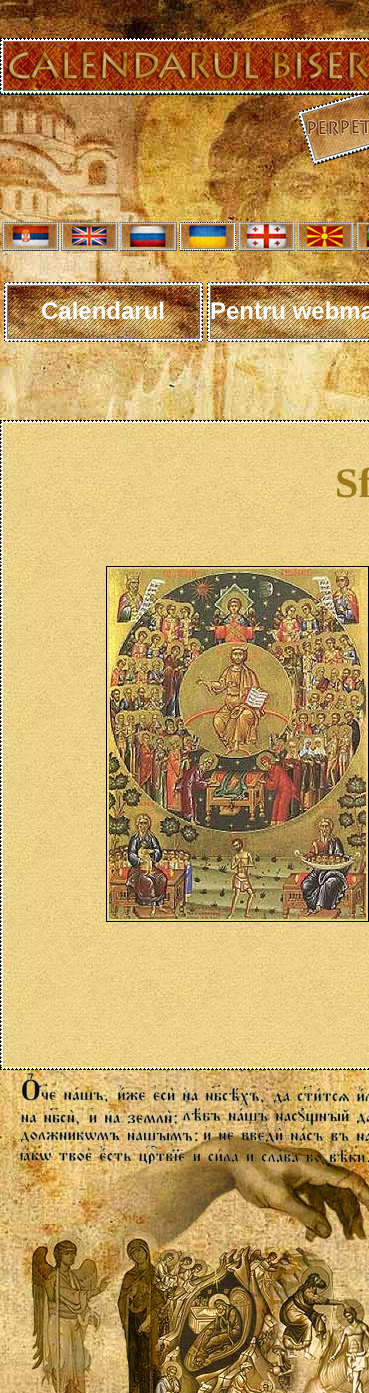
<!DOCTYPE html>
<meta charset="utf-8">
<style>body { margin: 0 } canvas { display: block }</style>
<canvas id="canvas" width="369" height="1393"></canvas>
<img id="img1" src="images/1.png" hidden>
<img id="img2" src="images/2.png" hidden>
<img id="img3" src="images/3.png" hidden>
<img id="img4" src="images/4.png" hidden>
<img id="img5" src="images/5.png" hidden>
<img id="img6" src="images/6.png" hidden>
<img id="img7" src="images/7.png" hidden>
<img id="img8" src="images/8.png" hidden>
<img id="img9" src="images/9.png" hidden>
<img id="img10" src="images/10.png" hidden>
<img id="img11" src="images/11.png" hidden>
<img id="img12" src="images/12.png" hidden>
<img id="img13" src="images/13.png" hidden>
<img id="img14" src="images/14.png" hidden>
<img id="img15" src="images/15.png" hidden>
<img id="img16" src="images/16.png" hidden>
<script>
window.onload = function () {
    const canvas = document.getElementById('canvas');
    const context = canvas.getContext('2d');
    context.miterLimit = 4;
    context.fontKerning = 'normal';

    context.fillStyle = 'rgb(255, 255, 255)';
    context.fillRect(0, 0, 369, 1393);
    context.drawImage(document.getElementById('img1'), 0, 0, 369, 420);
    context.drawImage(document.getElementById('img2'), 0, 38, 369, 128);
    context.drawImage(document.getElementById('img3'), 2, 222, 57, 29);
    context.drawImage(document.getElementById('img4'), 61, 222, 57, 29);
    context.drawImage(document.getElementById('img5'), 120, 222, 57, 29);
    context.drawImage(document.getElementById('img6'), 179, 222, 57, 29);
    context.drawImage(document.getElementById('img7'), 238, 222, 57, 29);
    context.drawImage(document.getElementById('img8'), 297, 222, 57, 29);
    context.drawImage(document.getElementById('img9'), 356, 222, 13, 29);
    context.drawImage(document.getElementById('img10'), 4, 282, 199, 60);
    context.drawImage(document.getElementById('img11'), 207, 282, 162, 60);
    context.drawImage(document.getElementById('img12'), 0, 420, 369, 143);
    context.drawImage(document.getElementById('img13'), 0, 563, 369, 504);
    context.strokeStyle = 'rgb(0, 0, 0)';
    context.strokeRect(106.5, 566.5, 262, 355);
    context.drawImage(document.getElementById('img14'), 109, 569, 257, 350);
    context.drawImage(document.getElementById('img15'), 0, 1067, 369, 3);
    context.drawImage(document.getElementById('img16'), 0, 1070, 369, 323);
    context.font = 'bold 24px Liberation Sans';
    context.fillText('Calendarul', 41, 319);
    context.fillText('Pentru webma', 210, 319);
    context.font = 'bold 42px Liberation Serif';
    context.fillStyle = 'rgb(156, 121, 27)';
    context.fillText('Sf', 335, 497);
};
</script>
